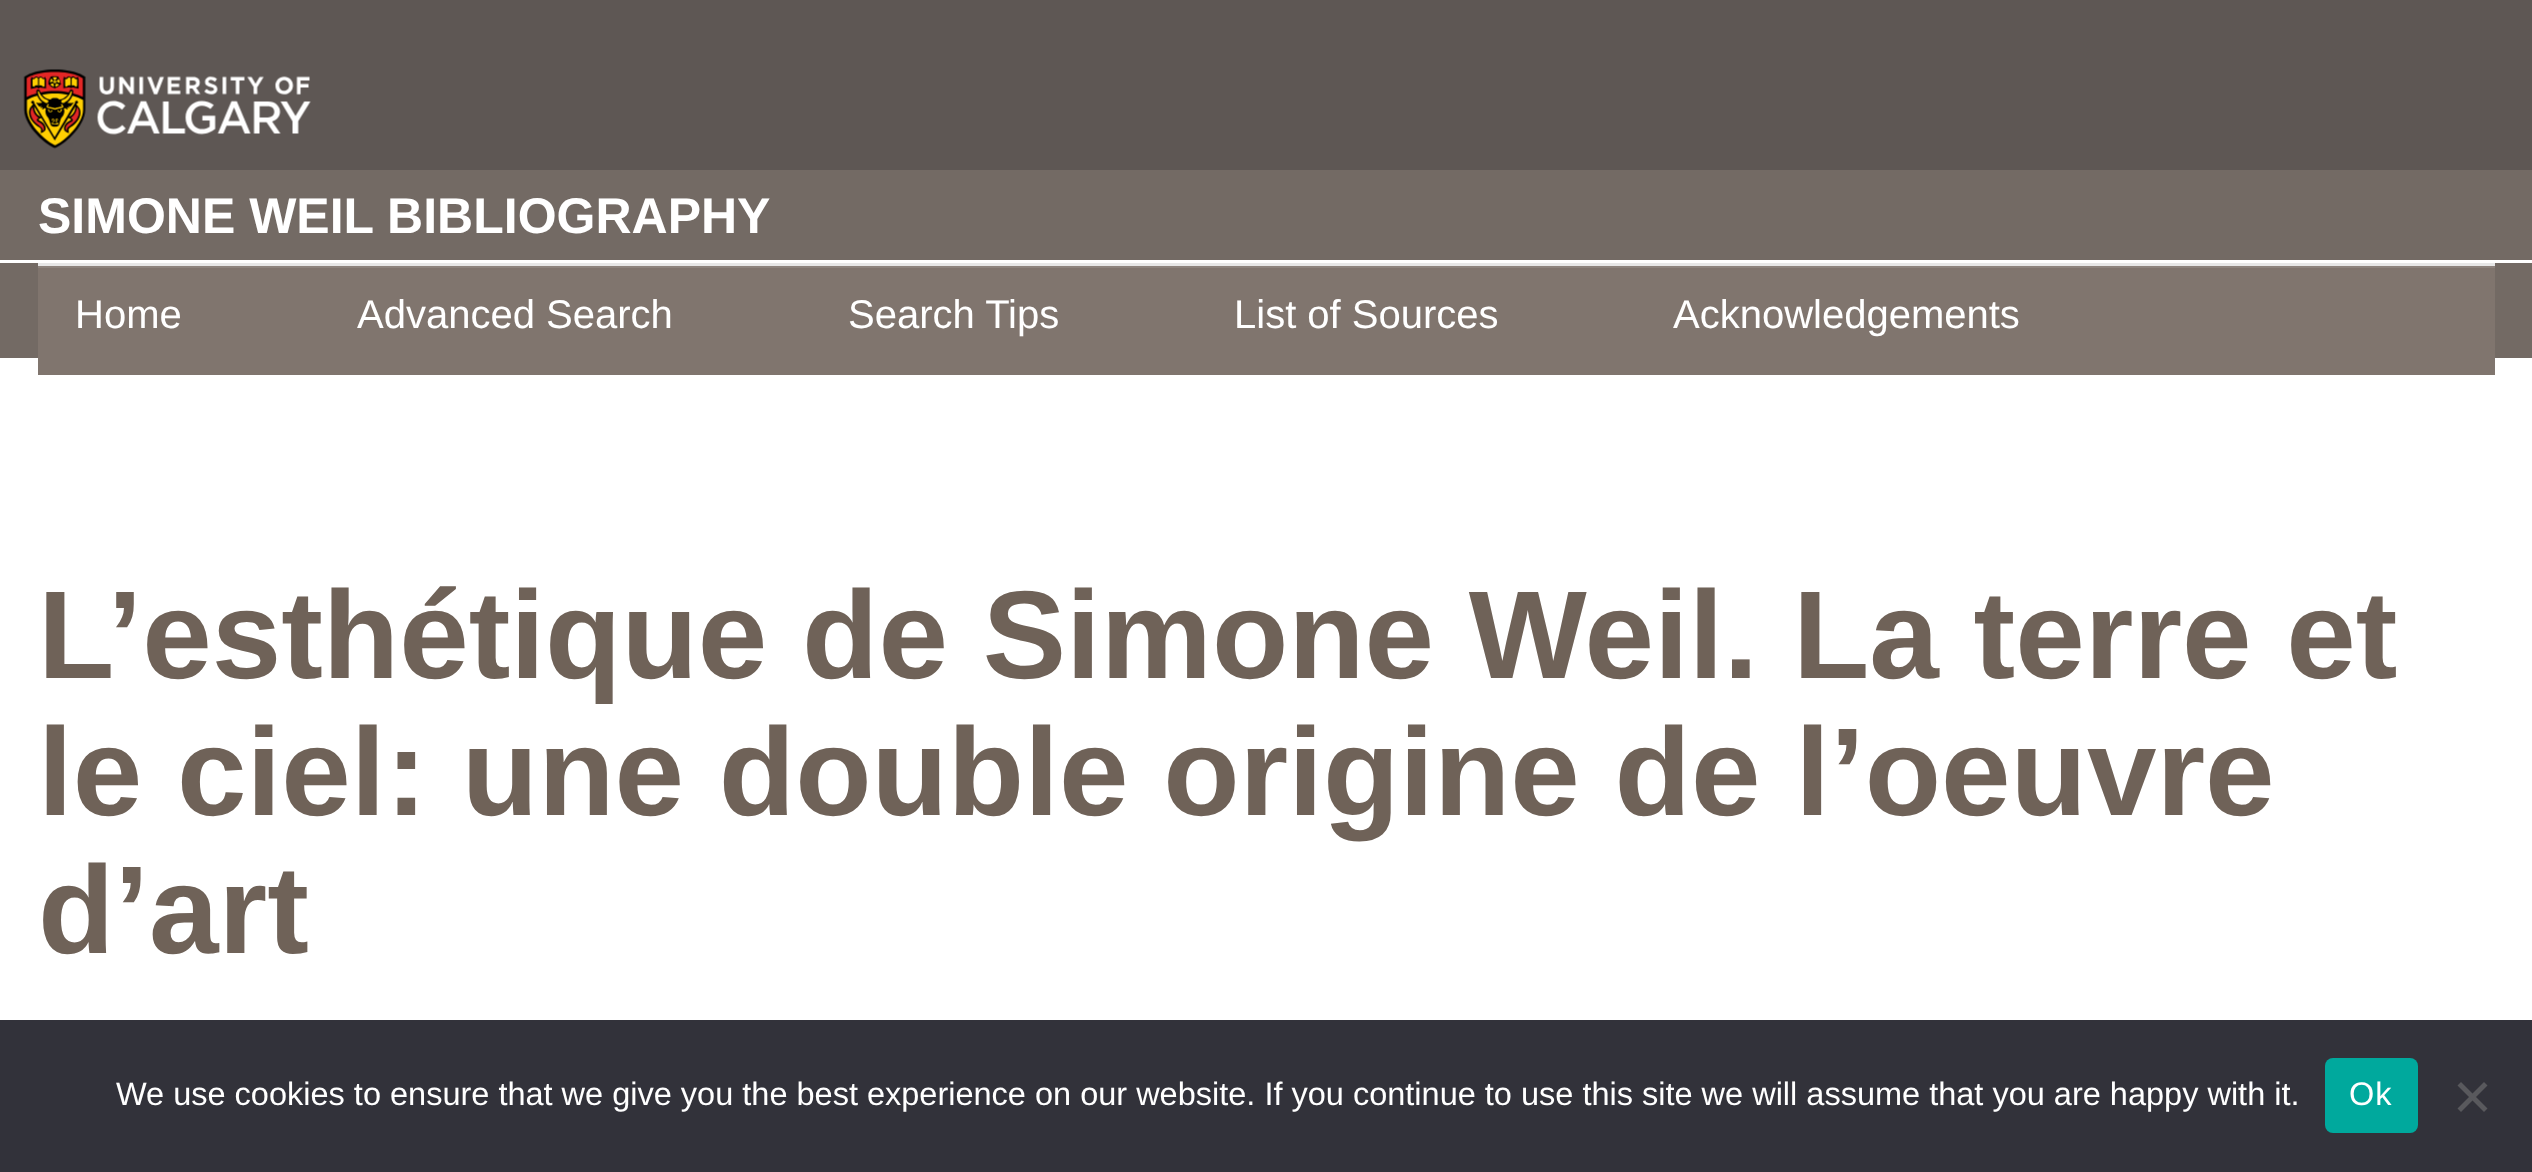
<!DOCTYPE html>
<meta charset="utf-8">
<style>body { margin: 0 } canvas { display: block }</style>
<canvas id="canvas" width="2532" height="1172"></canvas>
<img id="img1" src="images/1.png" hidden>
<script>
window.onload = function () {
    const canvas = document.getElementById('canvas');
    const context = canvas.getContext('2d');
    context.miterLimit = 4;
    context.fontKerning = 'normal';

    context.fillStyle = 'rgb(255, 255, 255)';
    context.fillRect(0, 0, 2532, 1172);
    context.fillStyle = 'rgb(94, 87, 84)';
    context.fillRect(0, 0, 2532, 170);
    context.drawImage(document.getElementById('img1'), 23, 69, 288, 80);
    context.fillStyle = 'rgb(115, 106, 100)';
    context.fillRect(0, 170, 2532, 188);
    context.fillStyle = 'rgb(255, 255, 255)';
    context.fillRect(0, 260, 2532, 3);
    context.fillStyle = 'rgb(128, 117, 110)';
    context.fillRect(38, 268, 2457, 107);
    context.fillStyle = 'rgb(141, 131, 125)';
    context.fillRect(38, 266, 2457, 2);
    context.fillStyle = 'rgb(231, 231, 231)';
    context.fillRect(38, 263, 2457, 3);
    context.fillStyle = 'rgb(50, 50, 58)';
    context.fillRect(0, 1020, 2532, 152);
    context.fillStyle = 'rgb(0, 169, 157)';
    context.beginPath();
    context.roundRect(2325, 1058, 93, 75, 8);
    context.fill();
    context.fillStyle = 'rgb(89, 89, 93)';
    context.beginPath();
    context.moveTo(2484, 1082);
    context.lineTo(2487.5, 1085.5);
    context.lineTo(2461, 1112);
    context.lineTo(2457.5, 1108.5);
    context.closePath();
    context.fill();
    context.beginPath();
    context.moveTo(2457.5, 1085.5);
    context.lineTo(2461, 1082);
    context.lineTo(2487.5, 1108.5);
    context.lineTo(2484, 1112);
    context.closePath();
    context.fill();
    context.font = 'bold 50px Liberation Sans';
    context.fillStyle = 'rgb(255, 255, 255)';
    context.fillText('SIMONE WEIL BIBLIOGRAPHY', 38, 233);
    context.font = '40px Liberation Sans';
    context.fillText('Home', 75, 328);
    context.fillText('Advanced Search', 357, 328);
    context.fillText('Search Tips', 848, 328);
    context.fillText('List of Sources', 1234, 328);
    context.fillText('Acknowledgements', 1673, 328);
    context.font = 'bold 125px Liberation Sans';
    context.fillStyle = 'rgb(111, 98, 88)';
    context.fillText('L’esthétique de Simone Weil. La terre et', 38, 678);
    context.fillText('le ciel: une double origine de l’oeuvre', 38, 815);
    context.fillText('d’art', 38, 953);
    context.font = '32.5px Liberation Sans';
    context.fillStyle = 'rgb(255, 255, 255)';
    context.fillText('We use cookies to ensure that we give you the best experience on our website. If you continue to use this site we will assume that you are happy with it.', 116, 1105);
    context.letterSpacing = '1px';
    context.fillText('Ok', 2349, 1105);
};
</script>
